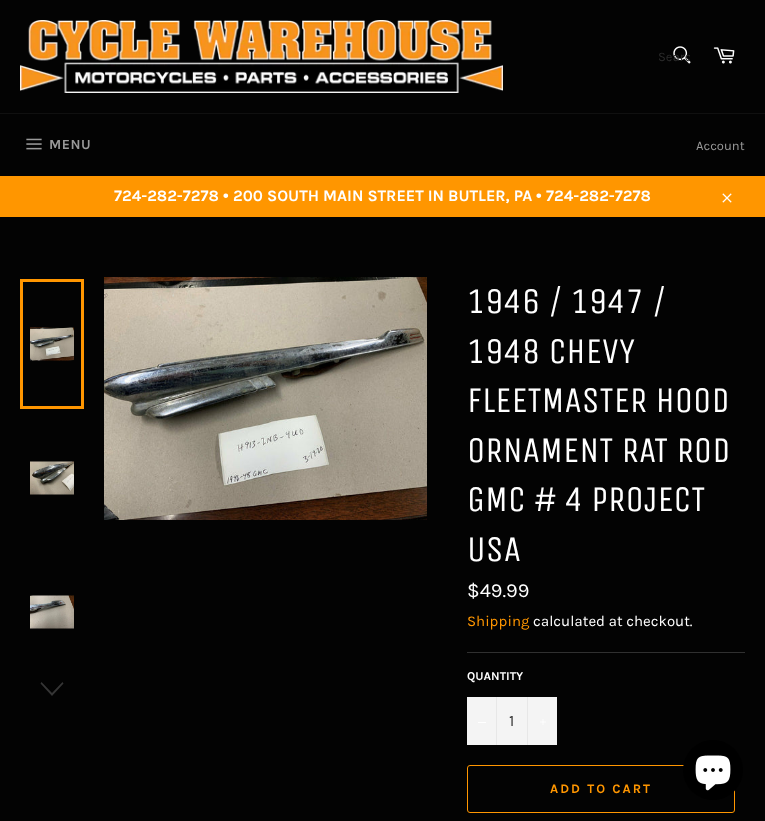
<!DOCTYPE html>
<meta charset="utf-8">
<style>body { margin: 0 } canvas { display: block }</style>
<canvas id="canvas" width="765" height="821"></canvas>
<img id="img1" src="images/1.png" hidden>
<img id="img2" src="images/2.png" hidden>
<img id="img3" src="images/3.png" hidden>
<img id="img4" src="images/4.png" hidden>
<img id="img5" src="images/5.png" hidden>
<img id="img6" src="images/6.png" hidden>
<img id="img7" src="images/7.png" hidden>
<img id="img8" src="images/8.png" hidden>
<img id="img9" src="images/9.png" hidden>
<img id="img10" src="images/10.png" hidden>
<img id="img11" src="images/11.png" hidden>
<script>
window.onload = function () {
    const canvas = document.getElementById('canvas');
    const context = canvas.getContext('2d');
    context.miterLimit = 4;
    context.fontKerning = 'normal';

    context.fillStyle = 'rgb(3, 3, 3)';
    context.fillRect(0, 0, 765, 821);
    context.drawImage(document.getElementById('img1'), 20, 20, 483, 73);
    context.drawImage(document.getElementById('img2'), 673, 46, 18, 18);
    context.drawImage(document.getElementById('img3'), 713, 47, 22, 17);
    context.fillStyle = 'rgb(16, 16, 16)';
    context.fillRect(0, 113, 765, 1);
    context.drawImage(document.getElementById('img4'), 26, 138, 16, 12);
    context.fillStyle = 'rgb(255, 150, 0)';
    context.fillRect(0, 176, 765, 41);
    context.drawImage(document.getElementById('img5'), 722, 193, 10, 10);
    context.drawImage(document.getElementById('img6'), 30, 327, 44, 34);
    context.strokeStyle = 'rgb(255, 150, 0)';
    context.lineWidth = 3;
    context.strokeRect(21.5, 280.5, 61, 127);
    context.drawImage(document.getElementById('img7'), 30, 461, 44, 34);
    context.drawImage(document.getElementById('img8'), 30, 595, 44, 34);
    context.fillStyle = 'rgb(53, 53, 53)';
    context.beginPath();
    context.moveTo(62.5, 682);
    context.lineTo(63.5, 683.5);
    context.lineTo(52, 696);
    context.lineTo(40.5, 683.5);
    context.lineTo(41.5, 682);
    context.lineTo(52, 693);
    context.closePath();
    context.fill();
    context.drawImage(document.getElementById('img9'), 104, 277, 323, 243);
    context.fillStyle = 'rgb(48, 48, 48)';
    context.fillRect(467, 652, 278, 1);
    context.fillStyle = 'rgb(244, 244, 244)';
    context.fillRect(467, 697, 90, 48);
    context.fillStyle = 'rgb(231, 231, 231)';
    context.fillRect(496, 697, 1, 48);
    context.fillStyle = 'rgb(255, 255, 255)';
    context.fillRect(478, 722, 8, 1);
    context.fillStyle = 'rgb(231, 231, 231)';
    context.fillRect(527, 697, 1, 48);
    context.drawImage(document.getElementById('img10'), 540, 719, 6, 6);
    context.beginPath();
    context.roundRect(467.5, 765.5, 267, 47, 2.5);
    context.lineWidth = 1;
    context.stroke();
    context.fillStyle = 'rgb(0, 0, 0)';
    context.beginPath();
    context.arc(713, 770, 30, 0, 2 * Math.PI);
    context.fill();
    context.drawImage(document.getElementById('img11'), 695, 755, 36, 36);
    context.save();
    context.beginPath();
    context.rect(658, 49, 32, 15);
    context.clip();
    context.font = '13px Karla';
    context.fillStyle = 'rgb(43, 43, 43)';
    context.fillText('Searc', 658, 61);
    context.restore();
    context.letterSpacing = '0.5px';
    context.font = 'bold 14px Karla';
    context.fillStyle = 'rgb(154, 154, 154)';
    context.fillText('MENU', 49, 149);
    context.letterSpacing = '0px';
    context.font = '13px Karla';
    context.fillText('Account', 696, 150);
    context.font = 'bold 16px Karla';
    context.fillStyle = 'rgb(255, 255, 255)';
    context.fillText('724-282-7278', 114, 201);
    context.font = 'bold 16px Liberation Sans';
    context.fillText('•', 223, 201);
    context.font = 'bold 16px Karla';
    context.fillText('200 SOUTH MAIN STREET IN BUTLER, PA', 233, 201);
    context.font = 'bold 16px Liberation Sans';
    context.fillText('•', 536, 201);
    context.font = 'bold 16px Karla';
    context.fillText('724-282-7278', 546, 201);
    context.font = '36px Unica One';
    context.fillText('1946 / 1947 /', 467, 313);
    context.fillText('1948 CHEVY', 467, 363);
    context.fillText('FLEETMASTER HOOD', 467, 412);
    context.fillText('ORNAMENT RAT ROD', 467, 462);
    context.fillText('GMC # 4 PROJECT', 467, 511);
    context.fillText('USA', 467, 561);
    context.font = '20px Karla';
    context.fillText('$49.99', 467, 597);
    context.font = '15px Karla';
    context.fillStyle = 'rgb(255, 150, 0)';
    context.fillText('Shipping', 467, 626);
    context.fillStyle = 'rgb(255, 255, 255)';
    context.fillText('calculated at checkout.', 533, 626);
    context.font = 'bold 12px Karla';
    context.fillText('QUANTITY', 467, 680);
    context.font = '16px Karla';
    context.fillStyle = 'rgb(51, 51, 51)';
    context.fillText('1', 509, 726);
    context.letterSpacing = '2px';
    context.font = 'bold 13px Karla';
    context.fillStyle = 'rgb(255, 150, 0)';
    context.fillText('ADD TO CART', 550, 793);
};
</script>
